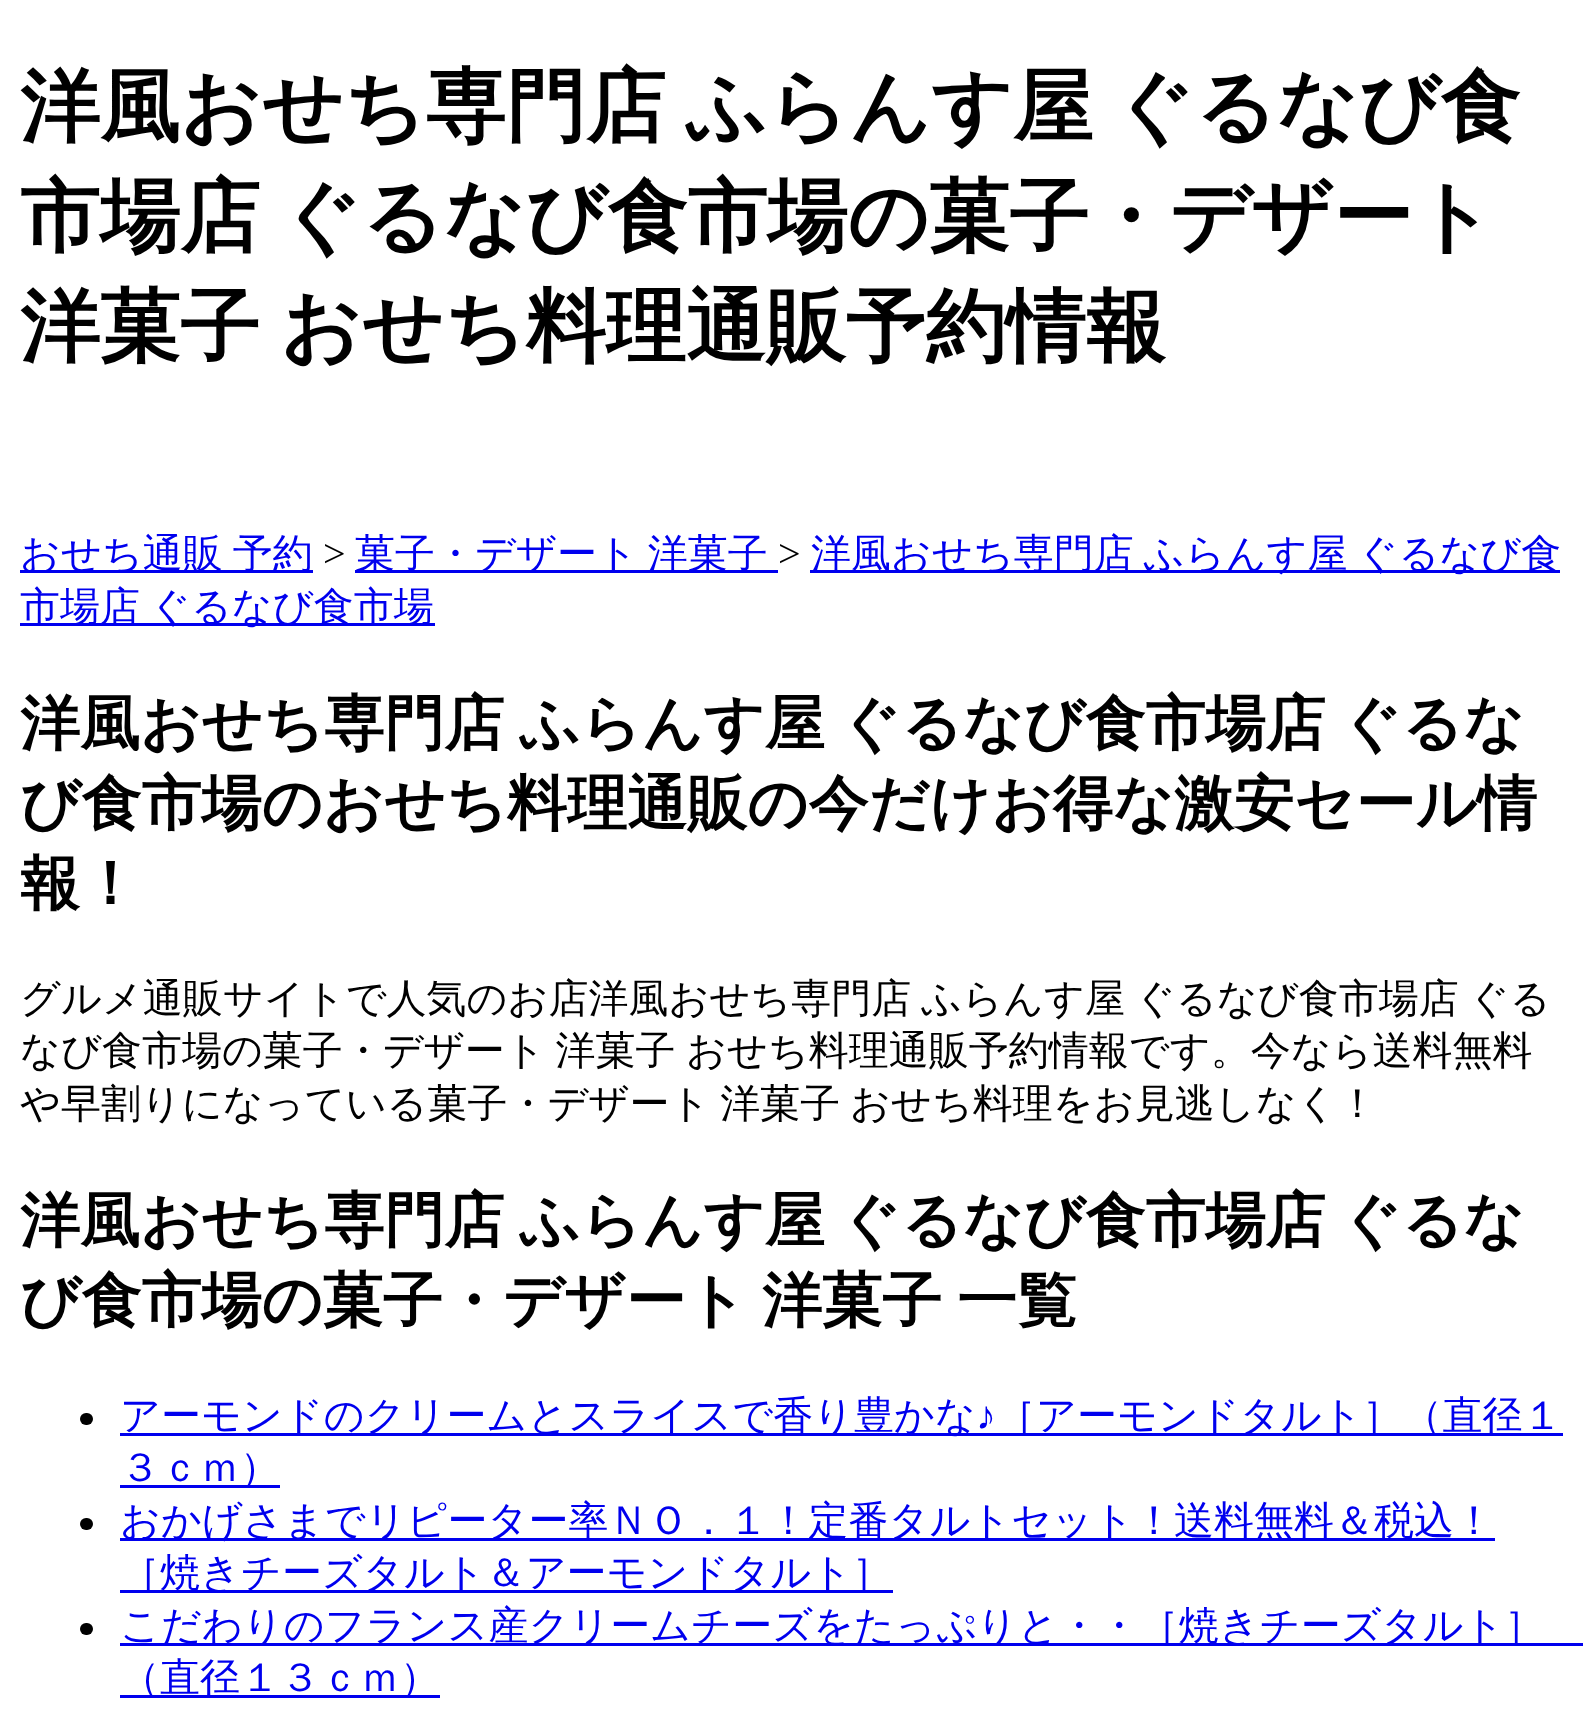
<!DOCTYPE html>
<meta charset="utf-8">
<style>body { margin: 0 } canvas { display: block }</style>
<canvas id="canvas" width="1583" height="1721"></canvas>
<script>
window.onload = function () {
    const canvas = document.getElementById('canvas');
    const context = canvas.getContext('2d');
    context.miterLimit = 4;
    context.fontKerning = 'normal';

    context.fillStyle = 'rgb(255, 255, 255)';
    context.fillRect(0, 0, 1583, 1721);
    context.fillStyle = 'rgb(0, 0, 238)';
    context.fillRect(20, 570, 293, 3);
    context.fillRect(355, 570, 423, 3);
    context.fillRect(810, 570, 750, 3);
    context.fillRect(20, 623, 415, 3);
    context.fillStyle = 'rgb(0, 0, 0)';
    context.beginPath();
    context.roundRect(80, 1413, 13, 12, 6);
    context.fill();
    context.fillStyle = 'rgb(0, 0, 238)';
    context.fillRect(120, 1433, 1443, 3);
    context.fillRect(120, 1485, 160, 3);
    context.fillStyle = 'rgb(0, 0, 0)';
    context.beginPath();
    context.roundRect(80, 1518, 13, 12, 6);
    context.fill();
    context.fillStyle = 'rgb(0, 0, 238)';
    context.fillRect(120, 1538, 1375, 3);
    context.fillRect(120, 1590, 773, 3);
    context.fillStyle = 'rgb(0, 0, 0)';
    context.beginPath();
    context.roundRect(80, 1623, 13, 12, 6);
    context.fill();
    context.fillStyle = 'rgb(0, 0, 238)';
    context.fillRect(120, 1643, 1463, 3);
    context.fillRect(120, 1695, 320, 3);
    context.wordSpacing = '-4px';
    context.font = 'bold 80px WenQuanYi Zen Hei';
    context.fillStyle = 'rgb(0, 0, 0)';
    context.fillText('洋風おせち専門店 ふらんす屋 ぐるなび食', 20, 134);
    context.fillText('市場店 ぐるなび食市場の菓子・デザート', 20, 244);
    context.wordSpacing = '0px';
    context.fillText('洋菓子', 20, 354);
    context.fillText('おせち料理通販予約情報', 280, 354);
    context.wordSpacing = '-2px';
    context.font = '500 40px WenQuanYi Zen Hei';
    context.fillStyle = 'rgb(0, 0, 238)';
    context.fillText('おせち通販 予約', 20, 567);
    context.wordSpacing = '0px';
    context.font = '40px Liberation Serif';
    context.fillStyle = 'rgb(0, 0, 0)';
    context.fillText('>', 323, 567);
    context.wordSpacing = '-2px';
    context.font = '500 40px WenQuanYi Zen Hei';
    context.fillStyle = 'rgb(0, 0, 238)';
    context.fillText('菓子・デザート 洋菓子', 355, 567);
    context.wordSpacing = '0px';
    context.font = '40px Liberation Serif';
    context.fillStyle = 'rgb(0, 0, 0)';
    context.fillText('>', 778, 567);
    context.wordSpacing = '-2px';
    context.font = '500 40px WenQuanYi Zen Hei';
    context.fillStyle = 'rgb(0, 0, 238)';
    context.fillText('洋風おせち専門店 ふらんす屋 ぐるなび食', 811, 567);
    context.fillText('市場店 ぐるなび食市場', 20, 620);
    context.wordSpacing = '-3px';
    context.font = 'bold 60px WenQuanYi Zen Hei';
    context.fillStyle = 'rgb(0, 0, 0)';
    context.fillText('洋風おせち専門店 ふらんす屋 ぐるなび食市場店 ぐるな', 20, 744);
    context.wordSpacing = '0px';
    context.fillText('び食市場のおせち料理通販の今だけお得な激安セール情', 20, 824);
    context.fillText('報！', 20, 904);
    context.wordSpacing = '-2px';
    context.font = '500 40px WenQuanYi Zen Hei';
    context.fillText('グルメ通販サイトで人気のお店洋風おせち専門店 ふらんす屋 ぐるなび食市場店 ぐる', 20, 1012);
    context.fillText('なび食市場の菓子・デザート 洋菓子', 20, 1064);
    context.wordSpacing = '0px';
    context.fillText('おせち料理通販予約情報です。今なら送料無料', 686, 1064);
    context.wordSpacing = '-2px';
    context.fillText('や早割りになっている菓子・デザート 洋菓子', 20, 1117);
    context.wordSpacing = '0px';
    context.fillText('おせち料理をお見逃しなく！', 850, 1117);
    context.wordSpacing = '-3px';
    context.font = 'bold 60px WenQuanYi Zen Hei';
    context.fillText('洋風おせち専門店 ふらんす屋 ぐるなび食市場店 ぐるな', 20, 1241);
    context.fillText('び食市場の菓子・デザート 洋菓子 一覧', 20, 1321);
    context.wordSpacing = '0px';
    context.font = '500 40px WenQuanYi Zen Hei';
    context.fillStyle = 'rgb(0, 0, 238)';
    context.fillText('アーモンドのクリームとスライスで香り豊かな', 120, 1429);
    context.font = '40px Liberation Serif';
    context.fillText('♪', 976, 1429);
    context.font = '500 40px WenQuanYi Zen Hei';
    context.fillText('［アーモンドタルト］（直径１', 996, 1429);
    context.fillText('３ｃｍ）', 120, 1481);
    context.fillText('おかげさまでリピーター率ＮＯ．１！定番タルトセット！送料無料＆税込！', 120, 1534);
    context.fillText('［焼きチーズタルト＆アーモンドタルト］', 120, 1586);
    context.fillText('こだわりのフランス産クリームチーズをたっぷりと・・［焼きチーズタルト］', 120, 1639);
    context.fillText('（直径１３ｃｍ）', 120, 1691);
};
</script>
